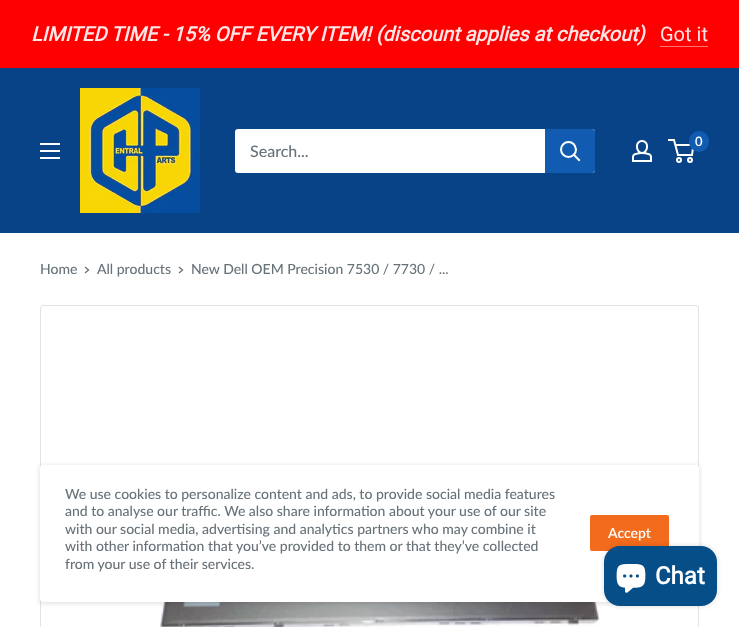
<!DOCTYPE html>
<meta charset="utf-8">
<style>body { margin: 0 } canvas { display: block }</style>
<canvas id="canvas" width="739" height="627"></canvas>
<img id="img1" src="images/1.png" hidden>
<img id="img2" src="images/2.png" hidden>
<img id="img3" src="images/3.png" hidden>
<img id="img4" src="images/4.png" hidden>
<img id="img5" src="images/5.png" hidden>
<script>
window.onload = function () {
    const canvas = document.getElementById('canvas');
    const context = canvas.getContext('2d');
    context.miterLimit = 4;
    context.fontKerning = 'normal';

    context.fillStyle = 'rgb(255, 255, 255)';
    context.fillRect(0, 0, 739, 627);
    context.fillStyle = 'rgb(255, 0, 0)';
    context.fillRect(0, 0, 739, 68);
    context.fillStyle = 'rgb(255, 115, 115)';
    context.fillRect(660, 46, 48, 1);
    context.fillStyle = 'rgb(8, 67, 135)';
    context.fillRect(0, 68, 739, 165);
    context.drawImage(document.getElementById('img1'), 80, 88, 120, 125);
    context.drawImage(document.getElementById('img2'), 632, 140, 20, 22);
    context.beginPath();
    context.arc(679, 160, 2, 0, 2 * Math.PI);
    context.strokeStyle = 'rgb(255, 255, 255)';
    context.lineWidth = 2;
    context.stroke();
    context.beginPath();
    context.arc(690, 160, 2, 0, 2 * Math.PI);
    context.stroke();
    context.beginPath();
    context.moveTo(675.5, 145);
    context.lineTo(693.5, 145);
    context.lineTo(692, 155);
    context.lineTo(678, 155);
    context.lineTo(674, 140);
    context.lineTo(668, 140);
    context.stroke();
    context.fillStyle = 'rgb(17, 91, 177)';
    context.beginPath();
    context.roundRect(689, 131, 20, 21, 10);
    context.fill();
    context.drawImage(document.getElementById('img3'), 40, 143, 20, 16);
    context.fillStyle = 'rgb(255, 255, 255)';
    context.beginPath();
    context.roundRect(235, 129, 360, 44, 3);
    context.fill();
    context.fillStyle = 'rgb(17, 91, 177)';
    context.beginPath();
    context.roundRect(545, 129, 50, 44, [0, 3, 3, 0]);
    context.fill();
    context.beginPath();
    context.moveTo(579, 160);
    context.lineTo(574, 155);
    context.lineCap = 'square';
    context.stroke();
    context.beginPath();
    context.arc(568.5, 149.5, 7.5, 0, 2 * Math.PI);
    context.stroke();
    context.beginPath();
    context.moveTo(85.5, 267.5);
    context.lineTo(88.5, 270);
    context.lineTo(85.5, 272.5);
    context.strokeStyle = 'rgb(103, 114, 121)';
    context.lineWidth = 1.3;
    context.stroke();
    context.beginPath();
    context.moveTo(179.5, 267.5);
    context.lineTo(182.5, 270);
    context.lineTo(179.5, 272.5);
    context.stroke();
    context.beginPath();
    context.roundRect(40.5, 305.5, 658, 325, 2.5);
    context.strokeStyle = 'rgb(225, 227, 228)';
    context.lineWidth = 1;
    context.stroke();
    context.drawImage(document.getElementById('img4'), 160, 602, 440, 25);
    context.fillStyle = 'rgba(0, 0, 0, 0.1)';
    context.filter = 'blur(2px)';
    context.beginPath();
    context.roundRect(39, 465, 661, 139, 4);
    context.fill();
    context.filter = 'none';
    context.fillStyle = 'rgb(255, 255, 255)';
    context.beginPath();
    context.roundRect(40, 465, 659, 137, 3);
    context.fill();
    context.fillStyle = 'rgb(243, 107, 28)';
    context.beginPath();
    context.roundRect(590, 515, 79, 36, 2);
    context.fill();
    context.fillStyle = 'rgba(0, 0, 0, 0.15)';
    context.filter = 'blur(2.5px)';
    context.beginPath();
    context.roundRect(604, 546, 113, 60, 16);
    context.fill();
    context.filter = 'none';
    context.fillStyle = 'rgb(5, 78, 136)';
    context.beginPath();
    context.roundRect(604, 546, 113, 60, 16);
    context.fill();
    context.drawImage(document.getElementById('img5'), 616, 564, 30, 29);
    context.font = 'italic bold 20px Roboto';
    context.fillStyle = 'rgb(255, 230, 230)';
    context.fillText('LIMITED TIME - 15% OFF EVERY ITEM! (discount applies at checkout)', 31, 41);
    context.font = '20px Roboto';
    context.fillText('Got it', 660, 41);
    context.font = '600 13px Lato';
    context.fillStyle = 'rgb(255, 255, 255)';
    context.fillText('0', 695, 146);
    context.font = '500 16px Lato';
    context.fillStyle = 'rgb(103, 114, 121)';
    context.fillText('Search...', 250, 157);
    context.font = '500 14px Lato';
    context.fillText('Home', 40, 274);
    context.fillText('All products', 97, 274);
    context.fillText('New Dell OEM Precision 7530 / 7730 / ...', 191, 274);
    context.fillText('We use cookies to personalize content and ads, to provide social media features', 65, 499);
    context.fillText('and to analyse our traffic. We also share information about your use of our site', 65, 516);
    context.fillText('with our social media, advertising and analytics partners who may combine it', 65, 534);
    context.fillText('with other information that you’ve provided to them or that they’ve collected', 65, 551);
    context.fillText('from your use of their services.', 65, 569);
    context.font = '600 14px Lato';
    context.fillStyle = 'rgb(255, 255, 255)';
    context.fillText('Accept', 608, 538);
    context.font = 'bold 24px Roboto';
    context.fillText('Chat', 655, 584);
};
</script>
